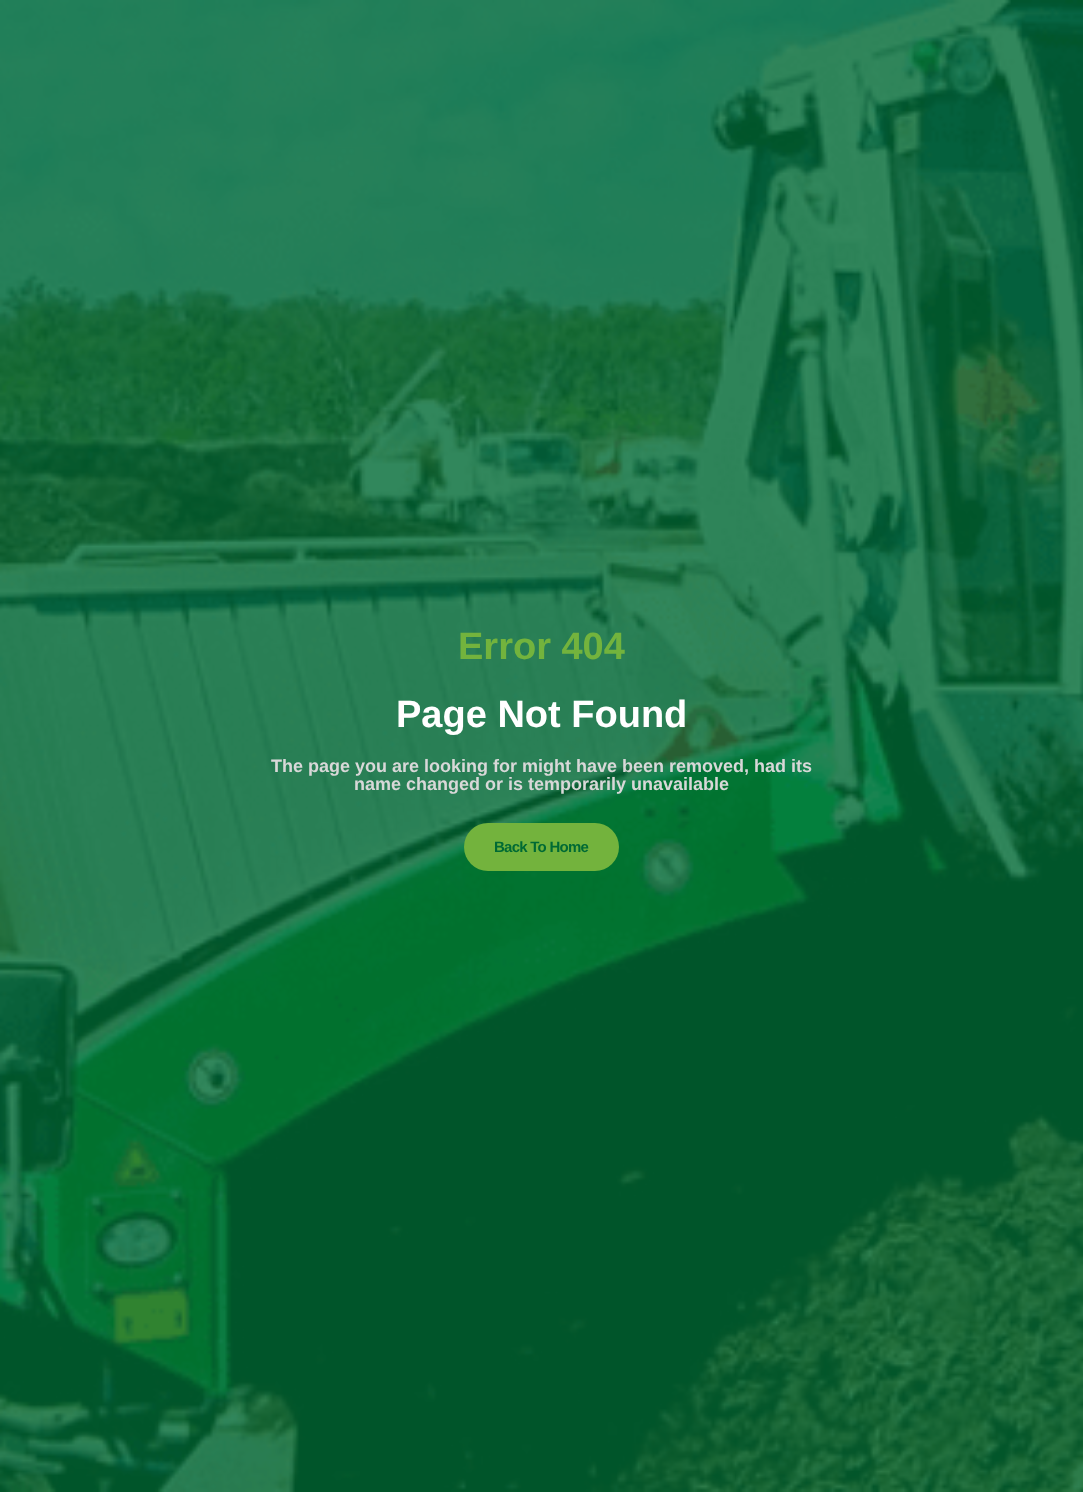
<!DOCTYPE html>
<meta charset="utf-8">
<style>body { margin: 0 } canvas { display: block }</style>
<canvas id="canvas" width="1083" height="1492"></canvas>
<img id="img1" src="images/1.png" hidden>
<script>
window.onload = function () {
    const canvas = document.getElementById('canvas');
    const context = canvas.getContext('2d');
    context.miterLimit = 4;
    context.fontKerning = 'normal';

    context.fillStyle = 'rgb(255, 255, 255)';
    context.fillRect(0, 0, 1083, 1492);
    context.drawImage(document.getElementById('img1'), 0, 0, 1083, 1492);
    context.fillStyle = 'rgb(115, 179, 61)';
    context.beginPath();
    context.roundRect(464, 823, 155, 48, 24);
    context.fill();
    context.font = 'bold 38px Liberation Sans';
    context.fillText('Error 404', 458, 659);
    context.fillStyle = 'rgb(255, 255, 255)';
    context.fillText('Page Not Found', 396, 727);
    context.font = 'bold 18px Liberation Sans';
    context.fillStyle = 'rgb(216, 216, 216)';
    context.fillText('The page you are looking for might have been removed, had its', 271, 772);
    context.fillText('name changed or is temporarily unavailable', 354, 790);
    context.letterSpacing = '-0.75px';
    context.font = 'bold 15px Liberation Sans';
    context.fillStyle = 'rgb(0, 106, 52)';
    context.fillText('Back To Home', 494, 852);
};
</script>
